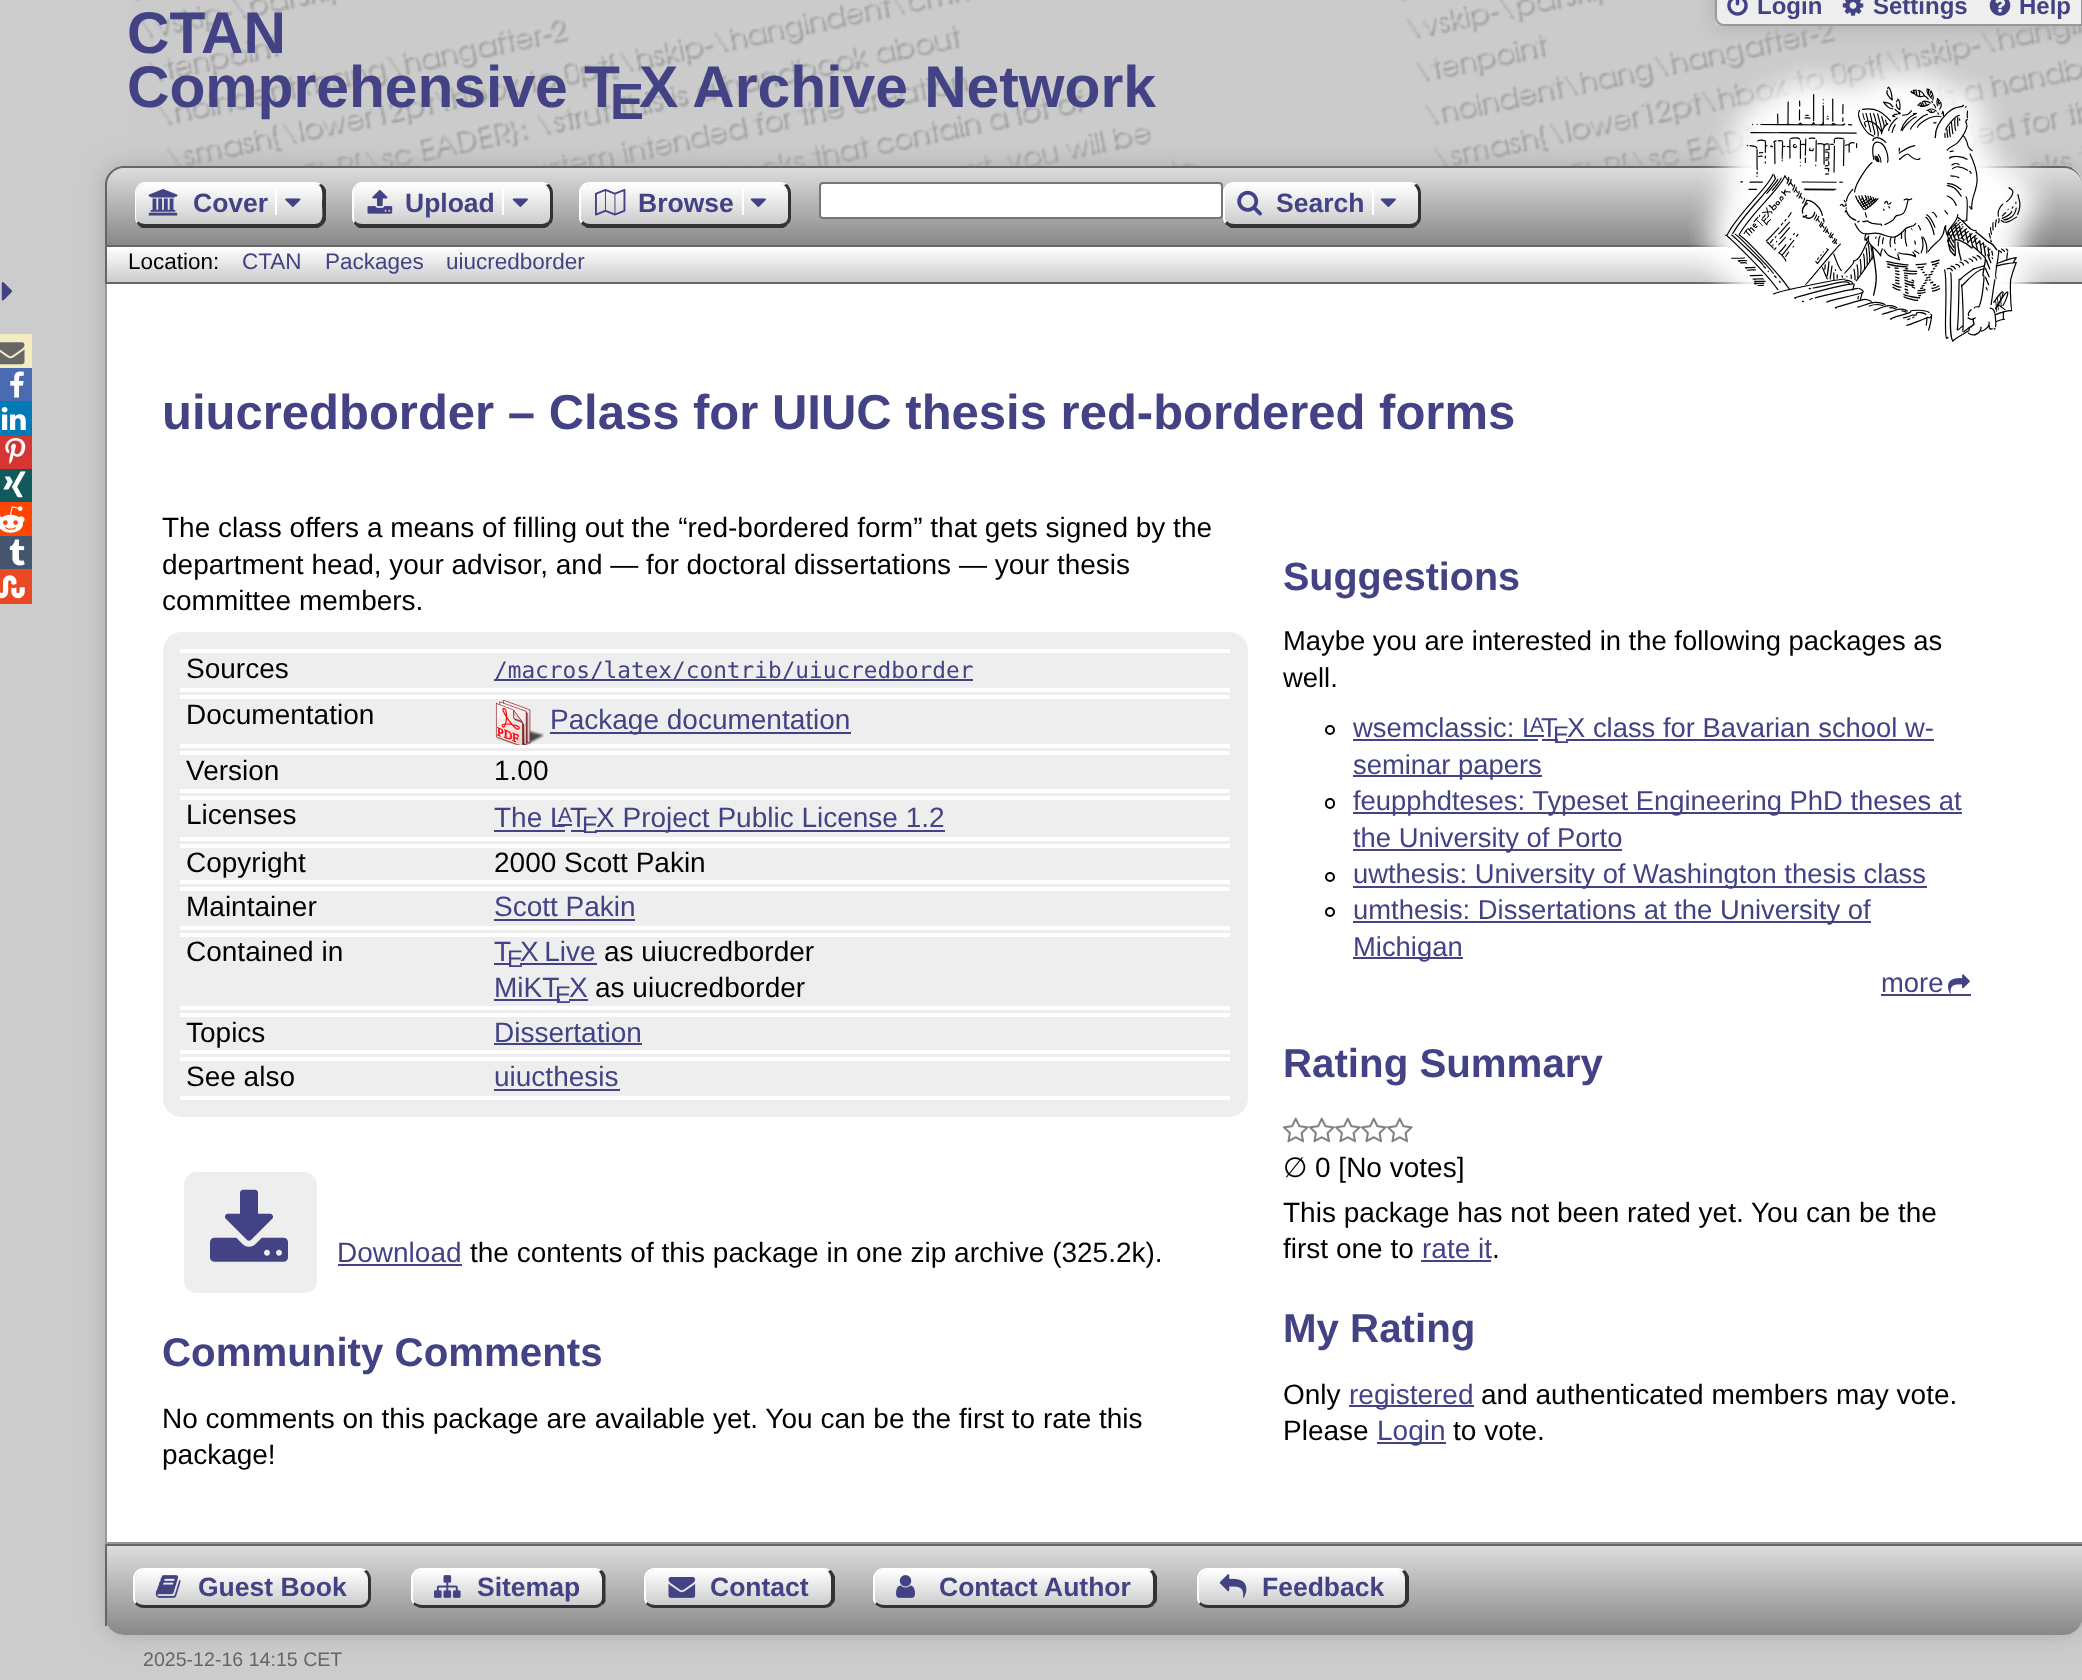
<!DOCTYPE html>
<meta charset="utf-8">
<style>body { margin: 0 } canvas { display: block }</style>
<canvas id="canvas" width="2082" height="1680"></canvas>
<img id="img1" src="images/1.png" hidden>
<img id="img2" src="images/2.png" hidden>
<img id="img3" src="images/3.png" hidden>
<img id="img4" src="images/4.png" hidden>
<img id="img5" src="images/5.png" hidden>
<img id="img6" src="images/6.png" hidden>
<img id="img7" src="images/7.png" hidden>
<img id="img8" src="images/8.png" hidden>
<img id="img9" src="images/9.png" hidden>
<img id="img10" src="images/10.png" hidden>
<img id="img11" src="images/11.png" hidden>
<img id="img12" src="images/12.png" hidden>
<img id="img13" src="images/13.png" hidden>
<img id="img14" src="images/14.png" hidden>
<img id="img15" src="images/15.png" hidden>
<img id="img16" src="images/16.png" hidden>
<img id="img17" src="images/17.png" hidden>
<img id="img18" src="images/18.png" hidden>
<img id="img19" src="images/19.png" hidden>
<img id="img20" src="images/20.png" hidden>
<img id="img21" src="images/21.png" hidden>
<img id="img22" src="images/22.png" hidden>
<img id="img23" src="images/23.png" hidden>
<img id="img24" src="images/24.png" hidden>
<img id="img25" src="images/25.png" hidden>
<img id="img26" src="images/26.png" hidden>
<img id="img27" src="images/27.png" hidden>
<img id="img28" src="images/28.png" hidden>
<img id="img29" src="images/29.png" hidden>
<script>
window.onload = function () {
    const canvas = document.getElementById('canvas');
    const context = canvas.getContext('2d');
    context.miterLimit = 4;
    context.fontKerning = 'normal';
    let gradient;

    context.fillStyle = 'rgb(204, 204, 204)';
    context.fillRect(0, 0, 2082, 1680);
    context.drawImage(document.getElementById('img1'), 134, 0, 1948, 166);
    context.fillStyle = 'rgb(170, 170, 170)';
    context.filter = 'blur(11px)';
    context.beginPath();
    context.roundRect(105, 166, 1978, 1469, 19);
    context.fill();
    context.filter = 'none';
    context.fillStyle = 'rgb(255, 255, 255)';
    context.beginPath();
    context.roundRect(105, 166, 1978, 1469, 19);
    context.fill();
    context.save();
    context.beginPath();
    context.moveTo(124, 166);
    context.lineTo(2064, 166);
    context.bezierCurveTo(2074.5, 166, 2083, 174.5, 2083, 185);
    context.lineTo(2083, 245);
    context.lineTo(105, 245);
    context.lineTo(105, 185);
    context.bezierCurveTo(105, 174.5, 113.5, 166, 124, 166);
    context.closePath();
    context.clip();
    gradient = context.createLinearGradient(1095, 91, 1095, 168);
    gradient.addColorStop(0, 'rgb(221, 221, 221)');
    gradient.addColorStop(1, 'rgb(136, 136, 136)');
    context.fillStyle = gradient;
    context.fillRect(115, 166, 1958, 2);
    gradient = context.createLinearGradient(1095, 168, 1095, 245);
    gradient.addColorStop(0, 'rgb(221, 221, 221)');
    gradient.addColorStop(1, 'rgb(136, 136, 136)');
    context.fillStyle = gradient;
    context.fillRect(105, 168, 1977, 77);
    context.restore();
    context.fillStyle = 'rgb(102, 102, 102)';
    context.beginPath();
    context.moveTo(124, 166);
    context.lineTo(2064, 166);
    context.bezierCurveTo(2074, 166, 2082, 175, 2082, 185);
    context.lineTo(2082, 245);
    context.lineTo(105, 245);
    context.lineTo(105, 185);
    context.bezierCurveTo(105, 175, 113, 166, 124, 166);
    context.closePath();
    context.moveTo(124, 168);
    context.lineTo(2064, 168);
    context.bezierCurveTo(2074, 168, 2082, 176, 2082, 185);
    context.lineTo(2082, 245);
    context.lineTo(107, 245);
    context.lineTo(107, 185);
    context.bezierCurveTo(107, 176, 114, 168, 124, 168);
    context.closePath();
    context.fill('evenodd');
    gradient = context.createLinearGradient(1095, 247, 1095, 282);
    gradient.addColorStop(0, 'rgb(255, 255, 255)');
    gradient.addColorStop(1, 'rgb(204, 204, 204)');
    context.fillStyle = gradient;
    context.fillRect(107, 249, 1975, 33);
    context.fillStyle = 'rgb(102, 102, 102)';
    context.fillRect(105, 245, 1977, 2);
    context.fillRect(105, 282, 1977, 2);
    context.drawImage(document.getElementById('img2'), 1689, 54, 366, 288);
    context.save();
    context.beginPath();
    context.moveTo(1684, 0);
    context.lineTo(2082, 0);
    context.lineTo(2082, 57);
    context.lineTo(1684, 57);
    context.closePath();
    context.moveTo(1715, -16);
    context.lineTo(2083, -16);
    context.lineTo(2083, 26);
    context.lineTo(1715, 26);
    context.closePath();
    context.clip('evenodd');
    context.fillStyle = 'rgb(170, 170, 170)';
    context.filter = 'blur(10px)';
    context.beginPath();
    context.rect(1715, -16, 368, 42);
    context.fill();
    context.filter = 'none';
    context.restore();
    context.fillStyle = 'rgb(238, 238, 238)';
    context.beginPath();
    context.moveTo(1716, -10);
    context.lineTo(2082, -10);
    context.lineTo(2082, 25);
    context.lineTo(1724, 25);
    context.bezierCurveTo(1719.5, 25, 1716, 21.5, 1716, 17);
    context.closePath();
    context.fill();
    context.strokeStyle = 'rgb(153, 153, 153)';
    context.lineWidth = 2;
    context.stroke();
    context.drawImage(document.getElementById('img3'), 1727, 0, 21, 16);
    context.drawImage(document.getElementById('img4'), 1842, 0, 22, 16);
    context.drawImage(document.getElementById('img5'), 1989, 0, 22, 16);
    gradient = context.createLinearGradient(229, 184, 229, 224);
    gradient.addColorStop(0, 'rgb(255, 255, 255)');
    gradient.addColorStop(1, 'rgb(204, 204, 204)');
    context.fillStyle = gradient;
    context.beginPath();
    context.moveTo(145, 184);
    context.lineTo(315, 184);
    context.bezierCurveTo(319, 184, 322, 188, 322, 193);
    context.lineTo(322, 217);
    context.bezierCurveTo(322, 221, 319, 224, 315, 224);
    context.lineTo(145, 224);
    context.bezierCurveTo(140, 224, 136, 221, 136, 217);
    context.lineTo(136, 193);
    context.bezierCurveTo(136, 188, 140, 184, 145, 184);
    context.closePath();
    context.fill();
    context.fillStyle = 'rgb(255, 255, 255)';
    context.beginPath();
    context.moveTo(145, 182);
    context.bezierCurveTo(142, 182, 140, 183, 138, 185);
    context.lineTo(139, 186);
    context.bezierCurveTo(140, 185, 142, 184, 144, 184);
    context.lineTo(316, 184);
    context.lineTo(319, 185);
    context.lineTo(321, 184);
    context.bezierCurveTo(320, 183, 317, 182, 315, 182);
    context.closePath();
    context.fill();
    context.fillStyle = 'rgb(51, 51, 51)';
    context.beginPath();
    context.moveTo(326, 220);
    context.lineTo(323, 225);
    context.lineTo(320, 222);
    context.bezierCurveTo(324, 218, 322, 209, 322, 205);
    context.bezierCurveTo(322, 200, 324, 189, 319, 185);
    context.lineTo(321, 184);
    context.bezierCurveTo(323, 185, 325, 187, 326, 190);
    context.closePath();
    context.fill();
    context.beginPath();
    context.moveTo(142, 228);
    context.bezierCurveTo(140, 227, 138, 225, 137, 223);
    context.lineTo(138, 221);
    context.bezierCurveTo(139, 223, 142, 224, 145, 224);
    context.lineTo(315, 224);
    context.bezierCurveTo(317, 224, 319, 223, 320, 222);
    context.lineTo(323, 225);
    context.lineTo(318, 228);
    context.closePath();
    context.fill();
    context.fillStyle = 'rgb(255, 255, 255)';
    context.beginPath();
    context.moveTo(138, 185.5);
    context.bezierCurveTo(136, 187.5, 135, 190, 135, 193);
    context.lineTo(135, 217);
    context.bezierCurveTo(135, 219.5, 135.5, 221.5, 137, 223);
    context.lineTo(138, 221.5);
    context.bezierCurveTo(136.5, 220, 136, 218.5, 136, 217);
    context.lineTo(136, 193);
    context.bezierCurveTo(136, 190.5, 137, 188, 139, 186.5);
    context.closePath();
    context.fill();
    context.drawImage(document.getElementById('img6'), 148, 189, 30, 27);
    context.fillRect(275, 189, 2, 26);
    context.drawImage(document.getElementById('img7'), 285, 198, 16, 9);
    gradient = context.createLinearGradient(452, 184, 452, 224);
    gradient.addColorStop(0, 'rgb(255, 255, 255)');
    gradient.addColorStop(1, 'rgb(204, 204, 204)');
    context.fillStyle = gradient;
    context.beginPath();
    context.moveTo(362, 184);
    context.lineTo(542, 184);
    context.bezierCurveTo(546, 184, 550, 188, 550, 193);
    context.lineTo(550, 217);
    context.bezierCurveTo(550, 221, 546, 224, 542, 224);
    context.lineTo(362, 224);
    context.bezierCurveTo(357, 224, 354, 221, 354, 217);
    context.lineTo(354, 193);
    context.bezierCurveTo(354, 188, 357, 184, 362, 184);
    context.closePath();
    context.fill();
    context.fillStyle = 'rgb(255, 255, 255)';
    context.beginPath();
    context.moveTo(362, 182);
    context.bezierCurveTo(359, 182, 357, 183, 355, 185);
    context.lineTo(356, 186);
    context.bezierCurveTo(358, 185, 360, 184, 362, 184);
    context.lineTo(542, 184);
    context.bezierCurveTo(543, 184, 545, 185, 546, 185);
    context.lineTo(549, 184);
    context.bezierCurveTo(547, 183, 544, 182, 542, 182);
    context.closePath();
    context.fill();
    context.fillStyle = 'rgb(51, 51, 51)';
    context.beginPath();
    context.moveTo(553, 217);
    context.lineTo(553, 193);
    context.bezierCurveTo(553, 189, 551, 186, 549, 184);
    context.lineTo(546, 185);
    context.bezierCurveTo(548, 187, 550, 190, 550, 193);
    context.lineTo(550, 217);
    context.bezierCurveTo(550, 219, 549, 221, 548, 222);
    context.lineTo(550, 224);
    context.bezierCurveTo(552, 223, 553, 220, 553, 217);
    context.closePath();
    context.fill();
    context.beginPath();
    context.moveTo(359, 228);
    context.bezierCurveTo(357, 227, 355, 225, 354, 223);
    context.lineTo(355, 221);
    context.bezierCurveTo(356, 223, 359, 224, 362, 224);
    context.lineTo(542, 224);
    context.bezierCurveTo(544, 224, 546, 223, 548, 222);
    context.lineTo(550, 224);
    context.bezierCurveTo(549, 226, 547, 227, 545, 228);
    context.closePath();
    context.fill();
    context.fillStyle = 'rgb(255, 255, 255)';
    context.beginPath();
    context.moveTo(355, 185.5);
    context.bezierCurveTo(353, 187.5, 352, 190, 352, 193);
    context.lineTo(352, 217);
    context.bezierCurveTo(352, 219.5, 352.5, 221.5, 354, 223);
    context.lineTo(355, 221);
    context.bezierCurveTo(354.5, 219.5, 354, 218.5, 354, 217);
    context.lineTo(354, 193);
    context.bezierCurveTo(354, 190.5, 355, 188, 356, 186.5);
    context.closePath();
    context.fill();
    context.drawImage(document.getElementById('img8'), 367, 189, 26, 25);
    context.fillRect(502, 189, 2, 26);
    context.drawImage(document.getElementById('img9'), 512, 198, 16, 9);
    gradient = context.createLinearGradient(684, 184, 684, 224);
    gradient.addColorStop(0, 'rgb(255, 255, 255)');
    gradient.addColorStop(1, 'rgb(204, 204, 204)');
    context.fillStyle = gradient;
    context.beginPath();
    context.moveTo(590, 184);
    context.lineTo(780, 184);
    context.bezierCurveTo(784, 184, 788, 188, 788, 193);
    context.lineTo(788, 217);
    context.bezierCurveTo(788, 221, 784, 224, 780, 224);
    context.lineTo(590, 224);
    context.bezierCurveTo(585, 224, 581, 221, 581, 217);
    context.lineTo(581, 193);
    context.bezierCurveTo(581, 188, 585, 184, 590, 184);
    context.closePath();
    context.fill();
    context.fillStyle = 'rgb(255, 255, 255)';
    context.beginPath();
    context.moveTo(590, 182);
    context.bezierCurveTo(587, 182, 584, 183, 582, 185);
    context.lineTo(584, 187);
    context.bezierCurveTo(585, 185, 587, 184, 589, 184);
    context.lineTo(781, 184);
    context.lineTo(784, 185);
    context.lineTo(787, 184);
    context.bezierCurveTo(785, 183, 782, 182, 780, 182);
    context.closePath();
    context.fill();
    context.fillStyle = 'rgb(51, 51, 51)';
    context.beginPath();
    context.moveTo(791, 217);
    context.lineTo(791, 193);
    context.bezierCurveTo(791, 189, 789, 186, 787, 184);
    context.lineTo(784, 185);
    context.bezierCurveTo(786, 187, 788, 190, 788, 193);
    context.lineTo(788, 217);
    context.bezierCurveTo(788, 219, 787, 221, 786, 222);
    context.lineTo(788, 224);
    context.bezierCurveTo(790, 223, 791, 220, 791, 217);
    context.closePath();
    context.fill();
    context.beginPath();
    context.moveTo(587, 228);
    context.bezierCurveTo(585, 227, 583, 225, 581, 224);
    context.lineTo(583, 221);
    context.bezierCurveTo(584, 223, 587, 224, 590, 224);
    context.lineTo(780, 224);
    context.bezierCurveTo(782, 224, 784, 223, 786, 222);
    context.lineTo(788, 224);
    context.bezierCurveTo(787, 226, 785, 227, 783, 228);
    context.closePath();
    context.fill();
    context.fillStyle = 'rgb(255, 255, 255)';
    context.beginPath();
    context.moveTo(579, 190.5);
    context.bezierCurveTo(579.5, 188.5, 581, 186.5, 582.5, 185);
    context.lineTo(584, 186.5);
    context.bezierCurveTo(582, 188, 581, 190.5, 581, 193);
    context.lineTo(581, 217);
    context.bezierCurveTo(581, 218.5, 581.5, 220, 582.5, 221);
    context.lineTo(581, 223.5);
    context.bezierCurveTo(580.5, 222.5, 579.5, 221, 579, 219.5);
    context.closePath();
    context.fill();
    context.drawImage(document.getElementById('img10'), 595, 189, 31, 27);
    context.fillRect(742, 189, 2, 26);
    context.drawImage(document.getElementById('img9'), 750, 198, 16, 9);
    context.beginPath();
    context.roundRect(820, 183, 402, 35, 3);
    context.fill();
    context.strokeStyle = 'rgb(118, 118, 118)';
    context.stroke();
    gradient = context.createLinearGradient(1321, 184, 1321, 224);
    gradient.addColorStop(0, 'rgb(255, 255, 255)');
    gradient.addColorStop(1, 'rgb(204, 204, 204)');
    context.fillStyle = gradient;
    context.beginPath();
    context.moveTo(1234, 184);
    context.lineTo(1410, 184);
    context.bezierCurveTo(1414, 184, 1418, 188, 1418, 193);
    context.lineTo(1418, 217);
    context.bezierCurveTo(1418, 221, 1414, 224, 1410, 224);
    context.lineTo(1234, 224);
    context.bezierCurveTo(1229, 224, 1225, 221, 1225, 217);
    context.lineTo(1225, 193);
    context.bezierCurveTo(1225, 188, 1229, 184, 1234, 184);
    context.closePath();
    context.fill();
    context.fillStyle = 'rgb(255, 255, 255)';
    context.beginPath();
    context.moveTo(1234, 182);
    context.bezierCurveTo(1231, 182, 1228, 183, 1226, 185);
    context.lineTo(1228, 187);
    context.lineTo(1228, 186);
    context.bezierCurveTo(1230, 185, 1231, 184, 1233, 184);
    context.lineTo(1411, 184);
    context.lineTo(1414, 185);
    context.lineTo(1417, 184);
    context.bezierCurveTo(1415, 183, 1412, 182, 1410, 182);
    context.closePath();
    context.fill();
    context.fillStyle = 'rgb(51, 51, 51)';
    context.beginPath();
    context.moveTo(1421, 217);
    context.lineTo(1421, 193);
    context.bezierCurveTo(1421, 189, 1419, 186, 1417, 184);
    context.lineTo(1414, 185);
    context.bezierCurveTo(1416, 187, 1418, 190, 1418, 193);
    context.lineTo(1418, 217);
    context.bezierCurveTo(1418, 219, 1417, 221, 1416, 222);
    context.lineTo(1418, 224);
    context.bezierCurveTo(1420, 223, 1421, 220, 1421, 217);
    context.closePath();
    context.fill();
    context.beginPath();
    context.moveTo(1231, 228);
    context.bezierCurveTo(1229, 227, 1227, 225, 1225, 224);
    context.lineTo(1227, 221);
    context.bezierCurveTo(1228, 223, 1231, 224, 1234, 224);
    context.lineTo(1410, 224);
    context.bezierCurveTo(1412, 224, 1414, 223, 1416, 222);
    context.lineTo(1418, 224);
    context.bezierCurveTo(1417, 226, 1415, 227, 1413, 228);
    context.closePath();
    context.fill();
    context.fillStyle = 'rgb(255, 255, 255)';
    context.beginPath();
    context.moveTo(1223, 190.5);
    context.bezierCurveTo(1223.5, 188.5, 1225, 186.5, 1226.5, 185);
    context.lineTo(1228, 186.5);
    context.bezierCurveTo(1226, 188, 1225, 190.5, 1225, 193);
    context.lineTo(1225, 217);
    context.bezierCurveTo(1225, 218.5, 1225.5, 220, 1226.5, 221);
    context.lineTo(1225, 223.5);
    context.bezierCurveTo(1224.5, 222.5, 1223.5, 221, 1223, 219.5);
    context.closePath();
    context.fill();
    context.drawImage(document.getElementById('img11'), 1237, 190, 25, 26);
    context.fillRect(1372, 189, 2, 26);
    context.drawImage(document.getElementById('img9'), 1380, 198, 16, 9);
    context.fillStyle = 'rgb(102, 102, 102)';
    context.fillRect(105, 245, 2, 39);
    context.fillStyle = 'rgb(153, 153, 153)';
    context.fillRect(105, 1542, 1977, 2);
    context.fillRect(105, 284, 2, 1260);
    context.fillStyle = 'rgb(238, 238, 238)';
    context.beginPath();
    context.roundRect(163, 632, 1085, 485, 19);
    context.fill();
    context.fillStyle = 'rgb(255, 255, 255)';
    context.fillRect(180, 649, 1050, 4);
    context.fillRect(180, 688, 1050, 4);
    context.fillStyle = 'rgb(66, 66, 133)';
    context.fillRect(494, 679, 479, 2);
    context.fillStyle = 'rgb(255, 255, 255)';
    context.fillRect(180, 695, 1050, 4);
    context.fillRect(180, 744, 1050, 4);
    context.drawImage(document.getElementById('img12'), 495, 700, 49, 45);
    context.fillStyle = 'rgb(66, 66, 133)';
    context.fillRect(550, 732, 301, 2);
    context.fillStyle = 'rgb(255, 255, 255)';
    context.fillRect(180, 751, 1050, 4);
    context.fillRect(180, 789, 1050, 4);
    context.fillRect(180, 796, 1050, 4);
    context.fillRect(180, 837, 1050, 4);
    context.fillStyle = 'rgb(66, 66, 133)';
    context.fillRect(494, 830, 71, 2);
    context.fillRect(558, 824, 14, 2);
    context.fillRect(571, 830, 15, 2);
    context.fillRect(595, 830, 350, 2);
    context.fillStyle = 'rgb(255, 255, 255)';
    context.fillRect(180, 844, 1050, 4);
    context.fillRect(180, 880, 1050, 4);
    context.fillRect(180, 887, 1050, 4);
    context.fillRect(180, 926, 1050, 4);
    context.fillStyle = 'rgb(66, 66, 133)';
    context.fillRect(494, 919, 141, 2);
    context.fillStyle = 'rgb(255, 255, 255)';
    context.fillRect(180, 933, 1050, 4);
    context.fillRect(180, 1006, 1050, 4);
    context.fillStyle = 'rgb(66, 66, 133)';
    context.fillRect(494, 963, 17, 2);
    context.fillRect(520, 963, 77, 2);
    context.fillRect(494, 999, 66, 2);
    context.fillRect(569, 999, 19, 2);
    context.fillStyle = 'rgb(255, 255, 255)';
    context.fillRect(180, 1013, 1050, 4);
    context.fillRect(180, 1050, 1050, 4);
    context.fillStyle = 'rgb(66, 66, 133)';
    context.fillRect(494, 1043, 148, 2);
    context.fillStyle = 'rgb(255, 255, 255)';
    context.fillRect(180, 1057, 1050, 4);
    context.fillRect(180, 1096, 1050, 4);
    context.fillStyle = 'rgb(66, 66, 133)';
    context.fillRect(494, 1089, 126, 2);
    context.fillStyle = 'rgb(238, 238, 238)';
    context.beginPath();
    context.moveTo(197, 1172);
    context.lineTo(303, 1172);
    context.bezierCurveTo(311, 1172, 317, 1178, 317, 1185);
    context.lineTo(317, 1281);
    context.bezierCurveTo(317, 1288, 311, 1293, 303, 1293);
    context.lineTo(197, 1293);
    context.bezierCurveTo(190, 1293, 184, 1288, 184, 1281);
    context.lineTo(184, 1185);
    context.bezierCurveTo(184, 1178, 190, 1172, 197, 1172);
    context.closePath();
    context.fill();
    context.drawImage(document.getElementById('img13'), 210, 1189, 78, 73);
    context.fillStyle = 'rgb(66, 66, 133)';
    context.fillRect(338, 1264, 124, 2);
    context.beginPath();
    context.arc(1330, 730, 4, 0, 2 * Math.PI);
    context.strokeStyle = 'rgb(0, 0, 0)';
    context.stroke();
    context.fillRect(1353, 739, 185, 2);
    context.fillRect(1530, 735, 14, 2);
    context.fillRect(1542, 739, 16, 2);
    context.fillRect(1566, 739, 368, 2);
    context.fillRect(1353, 775, 189, 2);
    context.beginPath();
    context.roundRect(1326, 799, 8, 9, 4);
    context.stroke();
    context.fillRect(1353, 812, 609, 2);
    context.fillRect(1353, 849, 269, 2);
    context.beginPath();
    context.arc(1330, 877, 4, 0, 2 * Math.PI);
    context.stroke();
    context.fillRect(1353, 886, 574, 2);
    context.beginPath();
    context.arc(1330, 912, 4, 0, 2 * Math.PI);
    context.stroke();
    context.fillRect(1353, 921, 518, 2);
    context.fillRect(1353, 957, 110, 2);
    context.fillRect(1881, 994, 90, 2);
    context.drawImage(document.getElementById('img14'), 1948, 974, 22, 20);
    context.drawImage(document.getElementById('img15'), 1282, 1117, 131, 26);
    context.fillRect(1421, 1260, 70, 2);
    context.fillRect(1349, 1405, 125, 2);
    context.fillRect(1377, 1442, 69, 2);
    gradient = context.createLinearGradient(1095, 1545, 1095, 1635);
    gradient.addColorStop(0, 'rgb(221, 221, 221)');
    gradient.addColorStop(1, 'rgb(136, 136, 136)');
    context.fillStyle = gradient;
    context.beginPath();
    context.moveTo(105, 1545);
    context.lineTo(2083, 1545);
    context.lineTo(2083, 1616);
    context.bezierCurveTo(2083, 1626.5, 2074.5, 1635, 2064, 1635);
    context.lineTo(124, 1635);
    context.bezierCurveTo(113.5, 1635, 105, 1626.5, 105, 1616);
    context.closePath();
    context.fill();
    context.fillStyle = 'rgb(102, 102, 102)';
    context.fillRect(105, 1544, 1977, 2);
    context.fillRect(105, 1544, 2, 82);
    gradient = context.createLinearGradient(251, 1570, 251, 1605);
    gradient.addColorStop(0, 'rgb(255, 255, 255)');
    gradient.addColorStop(1, 'rgb(204, 204, 204)');
    context.fillStyle = gradient;
    context.beginPath();
    context.moveTo(144, 1570);
    context.lineTo(360, 1570);
    context.bezierCurveTo(364, 1570, 368, 1574, 368, 1579);
    context.lineTo(368, 1598);
    context.bezierCurveTo(368, 1602, 364, 1605, 360, 1605);
    context.lineTo(144, 1605);
    context.bezierCurveTo(139, 1605, 135, 1602, 135, 1598);
    context.lineTo(135, 1579);
    context.bezierCurveTo(135, 1574, 139, 1570, 144, 1570);
    context.closePath();
    context.fill();
    context.fillStyle = 'rgb(255, 255, 255)';
    context.beginPath();
    context.moveTo(144, 1568);
    context.bezierCurveTo(141, 1568, 138, 1569, 136, 1571);
    context.lineTo(138, 1573);
    context.bezierCurveTo(139, 1571, 141, 1570, 143, 1570);
    context.lineTo(361, 1570);
    context.lineTo(364, 1571);
    context.lineTo(367, 1570);
    context.bezierCurveTo(365, 1569, 362, 1568, 360, 1568);
    context.closePath();
    context.fill();
    context.fillStyle = 'rgb(51, 51, 51)';
    context.beginPath();
    context.moveTo(371, 1598);
    context.lineTo(371, 1579);
    context.bezierCurveTo(371, 1575.5, 369, 1572, 366.5, 1570);
    context.lineTo(364, 1571.5);
    context.bezierCurveTo(366.5, 1573, 368, 1576, 368, 1579);
    context.lineTo(368, 1598);
    context.bezierCurveTo(368, 1600, 367, 1601.5, 365.5, 1603);
    context.lineTo(367.5, 1605);
    context.bezierCurveTo(369.5, 1603, 371, 1600.5, 371, 1598);
    context.closePath();
    context.fill();
    context.beginPath();
    context.moveTo(368, 1605);
    context.bezierCurveTo(366, 1607, 363, 1608, 360, 1608);
    context.lineTo(144, 1608);
    context.bezierCurveTo(140, 1608, 137, 1606, 135, 1604);
    context.lineTo(136, 1602);
    context.bezierCurveTo(138, 1604, 141, 1605, 144, 1605);
    context.lineTo(360, 1605);
    context.bezierCurveTo(362, 1605, 364, 1604, 366, 1603);
    context.closePath();
    context.fill();
    context.fillStyle = 'rgb(255, 255, 255)';
    context.beginPath();
    context.moveTo(133, 1579);
    context.lineTo(133, 1598);
    context.bezierCurveTo(133, 1600, 134, 1602, 135, 1604);
    context.lineTo(136.5, 1601.5);
    context.bezierCurveTo(135.5, 1600.5, 135, 1599.5, 135, 1598);
    context.lineTo(135, 1579);
    context.bezierCurveTo(135, 1576.5, 136, 1574, 137.5, 1572.5);
    context.lineTo(136, 1571);
    context.bezierCurveTo(134, 1573, 133, 1576, 133, 1579);
    context.closePath();
    context.fill();
    context.drawImage(document.getElementById('img16'), 155, 1575, 26, 23);
    gradient = context.createLinearGradient(508, 1570, 508, 1605);
    gradient.addColorStop(0, 'rgb(255, 255, 255)');
    gradient.addColorStop(1, 'rgb(204, 204, 204)');
    context.fillStyle = gradient;
    context.beginPath();
    context.moveTo(422, 1570);
    context.lineTo(595, 1570);
    context.bezierCurveTo(599, 1570, 602, 1574, 602, 1579);
    context.lineTo(602, 1598);
    context.bezierCurveTo(602, 1602, 599, 1605, 595, 1605);
    context.lineTo(422, 1605);
    context.bezierCurveTo(417, 1605, 413, 1602, 413, 1598);
    context.lineTo(413, 1579);
    context.bezierCurveTo(413, 1574, 417, 1570, 422, 1570);
    context.closePath();
    context.fill();
    context.fillStyle = 'rgb(255, 255, 255)';
    context.beginPath();
    context.moveTo(422, 1568);
    context.bezierCurveTo(419, 1568, 416, 1569, 414, 1571);
    context.lineTo(416, 1573);
    context.lineTo(416, 1572);
    context.bezierCurveTo(418, 1571, 419, 1570, 421, 1570);
    context.lineTo(596, 1570);
    context.lineTo(599, 1571);
    context.lineTo(601, 1570);
    context.bezierCurveTo(600, 1569, 597, 1568, 595, 1568);
    context.closePath();
    context.fill();
    context.fillStyle = 'rgb(51, 51, 51)';
    context.beginPath();
    context.moveTo(605.5, 1601);
    context.bezierCurveTo(605, 1602.5, 604, 1604, 602.5, 1605);
    context.lineTo(600, 1603);
    context.bezierCurveTo(601.5, 1601.5, 602, 1600, 602, 1598);
    context.lineTo(602, 1579);
    context.bezierCurveTo(602, 1576, 600.5, 1573, 599, 1571.5);
    context.lineTo(601.5, 1570);
    context.bezierCurveTo(603.5, 1571.5, 605, 1573.5, 605.5, 1576);
    context.closePath();
    context.fill();
    context.beginPath();
    context.moveTo(602, 1605);
    context.bezierCurveTo(600, 1607, 598, 1608, 595, 1608);
    context.lineTo(422, 1608);
    context.bezierCurveTo(419, 1608, 415, 1606, 413, 1604);
    context.lineTo(414, 1602);
    context.bezierCurveTo(416, 1604, 419, 1605, 422, 1605);
    context.lineTo(595, 1605);
    context.bezierCurveTo(597, 1605, 599, 1604, 600, 1603);
    context.closePath();
    context.fill();
    context.fillStyle = 'rgb(255, 255, 255)';
    context.beginPath();
    context.moveTo(411, 1576.5);
    context.bezierCurveTo(411.5, 1574.5, 413, 1572.5, 414.5, 1571);
    context.lineTo(416, 1572.5);
    context.bezierCurveTo(414, 1574, 413, 1576.5, 413, 1579);
    context.lineTo(413, 1598);
    context.bezierCurveTo(413, 1599.5, 413.5, 1601, 414.5, 1602);
    context.lineTo(413.5, 1604);
    context.bezierCurveTo(412.5, 1603, 411.5, 1601.5, 411, 1600);
    context.closePath();
    context.fill();
    context.drawImage(document.getElementById('img17'), 434, 1575, 27, 23);
    gradient = context.createLinearGradient(739, 1570, 739, 1605);
    gradient.addColorStop(0, 'rgb(255, 255, 255)');
    gradient.addColorStop(1, 'rgb(204, 204, 204)');
    context.fillStyle = gradient;
    context.beginPath();
    context.moveTo(655, 1570);
    context.lineTo(824, 1570);
    context.bezierCurveTo(828, 1570, 831, 1574, 831, 1579);
    context.lineTo(831, 1598);
    context.bezierCurveTo(831, 1602, 828, 1605, 824, 1605);
    context.lineTo(655, 1605);
    context.bezierCurveTo(650, 1605, 646, 1602, 646, 1598);
    context.lineTo(646, 1579);
    context.bezierCurveTo(646, 1574, 650, 1570, 655, 1570);
    context.closePath();
    context.fill();
    context.fillStyle = 'rgb(255, 255, 255)';
    context.beginPath();
    context.moveTo(655, 1568);
    context.bezierCurveTo(652, 1568, 649, 1569, 647, 1571);
    context.lineTo(649, 1573);
    context.bezierCurveTo(650, 1571, 652, 1570, 654, 1570);
    context.lineTo(825, 1570);
    context.lineTo(828, 1571);
    context.lineTo(830, 1570);
    context.bezierCurveTo(829, 1569, 826, 1568, 824, 1568);
    context.closePath();
    context.fill();
    context.fillStyle = 'rgb(51, 51, 51)';
    context.beginPath();
    context.moveTo(835, 1600);
    context.bezierCurveTo(834.5, 1602, 833, 1603.5, 831.5, 1605);
    context.lineTo(829, 1602.5);
    context.bezierCurveTo(830.5, 1601.5, 831, 1600, 831, 1598);
    context.lineTo(831, 1579);
    context.bezierCurveTo(831, 1576, 830, 1573, 828, 1571.5);
    context.lineTo(830.5, 1570);
    context.bezierCurveTo(832.5, 1571.5, 834, 1574, 835, 1576.5);
    context.closePath();
    context.fill();
    context.beginPath();
    context.moveTo(832, 1605);
    context.bezierCurveTo(830, 1607, 827, 1608, 824, 1608);
    context.lineTo(655, 1608);
    context.bezierCurveTo(651, 1608, 648, 1606, 646, 1604);
    context.lineTo(647, 1602);
    context.bezierCurveTo(649, 1604, 652, 1605, 655, 1605);
    context.lineTo(824, 1605);
    context.bezierCurveTo(826, 1605, 828, 1604, 829, 1603);
    context.closePath();
    context.fill();
    context.fillStyle = 'rgb(255, 255, 255)';
    context.beginPath();
    context.moveTo(644, 1579);
    context.lineTo(644, 1598);
    context.bezierCurveTo(644, 1600, 645, 1602, 646, 1604);
    context.lineTo(647.5, 1601.5);
    context.bezierCurveTo(646.5, 1600.5, 646, 1599.5, 646, 1598);
    context.lineTo(646, 1579);
    context.bezierCurveTo(646, 1576.5, 647, 1574, 648.5, 1572.5);
    context.lineTo(647, 1571);
    context.bezierCurveTo(645, 1573, 644, 1576, 644, 1579);
    context.closePath();
    context.fill();
    context.drawImage(document.getElementById('img18'), 668, 1577, 28, 21);
    gradient = context.createLinearGradient(1014, 1570, 1014, 1605);
    gradient.addColorStop(0, 'rgb(255, 255, 255)');
    gradient.addColorStop(1, 'rgb(204, 204, 204)');
    context.fillStyle = gradient;
    context.beginPath();
    context.moveTo(884, 1570);
    context.lineTo(1146, 1570);
    context.bezierCurveTo(1150, 1570, 1153, 1574, 1153, 1579);
    context.lineTo(1153, 1598);
    context.bezierCurveTo(1153, 1602, 1150, 1605, 1146, 1605);
    context.lineTo(884, 1605);
    context.bezierCurveTo(879, 1605, 875, 1602, 875, 1598);
    context.lineTo(875, 1579);
    context.bezierCurveTo(875, 1574, 879, 1570, 884, 1570);
    context.closePath();
    context.fill();
    context.fillStyle = 'rgb(255, 255, 255)';
    context.beginPath();
    context.moveTo(884, 1568);
    context.bezierCurveTo(881, 1568, 878, 1569, 876, 1571);
    context.lineTo(878, 1573);
    context.bezierCurveTo(879, 1571, 882, 1570, 884, 1570);
    context.lineTo(1147, 1570);
    context.lineTo(1150, 1571);
    context.lineTo(1152, 1570);
    context.bezierCurveTo(1151, 1569, 1148, 1568, 1146, 1568);
    context.closePath();
    context.fill();
    context.fillStyle = 'rgb(51, 51, 51)';
    context.beginPath();
    context.moveTo(1157, 1600);
    context.bezierCurveTo(1156.5, 1602, 1155, 1603.5, 1153.5, 1605);
    context.lineTo(1151, 1602.5);
    context.bezierCurveTo(1152.5, 1601.5, 1153, 1600, 1153, 1598);
    context.lineTo(1153, 1579);
    context.bezierCurveTo(1153, 1576, 1152, 1573, 1150, 1571.5);
    context.lineTo(1152.5, 1570);
    context.bezierCurveTo(1154.5, 1571.5, 1156, 1574, 1157, 1576.5);
    context.closePath();
    context.fill();
    context.beginPath();
    context.moveTo(1154, 1605);
    context.bezierCurveTo(1152, 1607, 1149, 1608, 1146, 1608);
    context.lineTo(884, 1608);
    context.bezierCurveTo(881, 1608, 877, 1606, 875, 1604);
    context.lineTo(876, 1602);
    context.bezierCurveTo(878, 1604, 881, 1605, 884, 1605);
    context.lineTo(1146, 1605);
    context.bezierCurveTo(1148, 1605, 1150, 1604, 1151, 1603);
    context.closePath();
    context.fill();
    context.fillStyle = 'rgb(255, 255, 255)';
    context.beginPath();
    context.moveTo(873, 1576.5);
    context.bezierCurveTo(873.5, 1574.5, 875, 1572.5, 876.5, 1571);
    context.lineTo(878, 1572.5);
    context.bezierCurveTo(876, 1574, 875, 1576.5, 875, 1579);
    context.lineTo(875, 1598);
    context.bezierCurveTo(875, 1599.5, 875.5, 1601, 876.5, 1602);
    context.lineTo(875.5, 1604);
    context.bezierCurveTo(874.5, 1603, 873.5, 1601.5, 873, 1600);
    context.closePath();
    context.fill();
    context.drawImage(document.getElementById('img19'), 896, 1575, 19, 23);
    gradient = context.createLinearGradient(1302, 1570, 1302, 1605);
    gradient.addColorStop(0, 'rgb(255, 255, 255)');
    gradient.addColorStop(1, 'rgb(204, 204, 204)');
    context.fillStyle = gradient;
    context.beginPath();
    context.moveTo(1208, 1570);
    context.lineTo(1398, 1570);
    context.bezierCurveTo(1402, 1570, 1405, 1574, 1405, 1579);
    context.lineTo(1405, 1598);
    context.bezierCurveTo(1405, 1602, 1402, 1605, 1398, 1605);
    context.lineTo(1208, 1605);
    context.bezierCurveTo(1203, 1605, 1199, 1602, 1199, 1598);
    context.lineTo(1199, 1579);
    context.bezierCurveTo(1199, 1574, 1203, 1570, 1208, 1570);
    context.closePath();
    context.fill();
    context.fillStyle = 'rgb(255, 255, 255)';
    context.beginPath();
    context.moveTo(1208, 1568);
    context.bezierCurveTo(1205, 1568, 1202, 1569, 1200, 1571);
    context.lineTo(1202, 1573);
    context.bezierCurveTo(1203, 1571, 1206, 1570, 1208, 1570);
    context.lineTo(1399, 1570);
    context.lineTo(1402, 1571);
    context.lineTo(1404, 1570);
    context.bezierCurveTo(1403, 1569, 1400, 1568, 1398, 1568);
    context.closePath();
    context.fill();
    context.fillStyle = 'rgb(51, 51, 51)';
    context.beginPath();
    context.moveTo(1409, 1600);
    context.bezierCurveTo(1408.5, 1602, 1407, 1603.5, 1405.5, 1605);
    context.lineTo(1403, 1602.5);
    context.bezierCurveTo(1404.5, 1601.5, 1405, 1600, 1405, 1598);
    context.lineTo(1405, 1579);
    context.bezierCurveTo(1405, 1576, 1404, 1573, 1402, 1571.5);
    context.lineTo(1404.5, 1570);
    context.bezierCurveTo(1406.5, 1571.5, 1408, 1574, 1409, 1576.5);
    context.closePath();
    context.fill();
    context.beginPath();
    context.moveTo(1406, 1605);
    context.bezierCurveTo(1404, 1607, 1401, 1608, 1398, 1608);
    context.lineTo(1208, 1608);
    context.bezierCurveTo(1204, 1608, 1201, 1606, 1199, 1604);
    context.lineTo(1200, 1602);
    context.bezierCurveTo(1202, 1604, 1205, 1605, 1208, 1605);
    context.lineTo(1398, 1605);
    context.bezierCurveTo(1400, 1605, 1402, 1604, 1403, 1603);
    context.closePath();
    context.fill();
    context.fillStyle = 'rgb(255, 255, 255)';
    context.beginPath();
    context.moveTo(1197, 1579);
    context.lineTo(1197, 1598);
    context.bezierCurveTo(1197, 1600, 1198, 1602, 1199, 1604);
    context.lineTo(1200.5, 1601.5);
    context.bezierCurveTo(1199.5, 1600.5, 1199, 1599.5, 1199, 1598);
    context.lineTo(1199, 1579);
    context.bezierCurveTo(1199, 1576.5, 1200, 1574, 1201.5, 1572.5);
    context.lineTo(1200, 1571);
    context.bezierCurveTo(1198, 1573, 1197, 1576, 1197, 1579);
    context.closePath();
    context.fill();
    context.drawImage(document.getElementById('img20'), 1219, 1574, 28, 24);
    context.drawImage(document.getElementById('img21'), 1, 282, 12, 19);
    context.fillStyle = 'rgb(243, 236, 192)';
    context.fillRect(0, 334, 32, 34);
    context.drawImage(document.getElementById('img22'), 0, 342, 25, 23);
    context.fillStyle = 'rgb(74, 107, 178)';
    context.fillRect(0, 368, 32, 33);
    context.drawImage(document.getElementById('img23'), 10, 371, 14, 27);
    context.fillStyle = 'rgb(0, 122, 181)';
    context.fillRect(0, 401, 32, 35);
    context.drawImage(document.getElementById('img24'), 1, 407, 25, 23);
    context.fillStyle = 'rgb(215, 53, 50)';
    context.fillRect(0, 436, 32, 33);
    context.drawImage(document.getElementById('img25'), 5, 438, 21, 26);
    context.fillStyle = 'rgb(18, 89, 91)';
    context.fillRect(0, 469, 32, 33);
    context.drawImage(document.getElementById('img26'), 3, 471, 23, 27);
    context.fillStyle = 'rgb(255, 69, 0)';
    context.fillRect(0, 502, 32, 34);
    context.drawImage(document.getElementById('img27'), 0, 506, 25, 27);
    context.fillStyle = 'rgb(67, 86, 110)';
    context.fillRect(0, 536, 32, 33);
    context.drawImage(document.getElementById('img28'), 9, 539, 16, 27);
    context.fillStyle = 'rgb(235, 73, 36)';
    context.fillRect(0, 569, 32, 35);
    context.drawImage(document.getElementById('img29'), 0, 575, 25, 24);
    context.font = 'bold 58.75px Liberation Sans';
    context.fillStyle = 'rgb(66, 66, 133)';
    context.fillText('CTAN', 127, 53);
    context.fillText('Comprehensive T', 127, 107);
    context.font = 'bold 51px Liberation Sans';
    context.fillText('E', 610, 119);
    context.font = 'bold 58.75px Liberation Sans';
    context.fillText('X Archive Network', 639, 107);
    context.font = 'bold 24px Liberation Sans';
    context.fillText('Login', 1757, 14);
    context.fillText('Settings', 1873, 14);
    context.fillText('Help', 2019, 14);
    context.font = 'bold 26.5px Liberation Sans';
    context.fillText('Cover', 193, 212);
    context.fillText('Upload', 405, 212);
    context.fillText('Browse', 638, 212);
    context.fillText('Search', 1276, 212);
    context.font = '22.5px Liberation Sans';
    context.fillStyle = 'rgb(0, 0, 0)';
    context.fillText('Location:', 128, 269);
    context.fillStyle = 'rgb(66, 66, 133)';
    context.fillText('CTAN', 242, 269);
    context.fillText('Packages', 325, 269);
    context.fillText('uiucredborder', 446, 269);
    context.font = 'bold 49px Liberation Sans';
    context.fillText('uiucredborder – Class for UIUC thesis red-bordered forms', 162, 429);
    context.font = '28px Liberation Sans';
    context.fillStyle = 'rgb(0, 0, 0)';
    context.fillText('The class offers a means of filling out the “red-bordered form” that gets signed by the', 162, 537);
    context.fillText('department head, your advisor, and — for doctoral dissertations — your thesis', 162, 574);
    context.fillText('committee members.', 162, 610);
    context.fillText('Sources', 186, 678);
    context.font = '22.75px DejaVu Sans Mono';
    context.fillStyle = 'rgb(66, 66, 133)';
    context.fillText('/macros/latex/contrib/uiucredborder', 494, 678);
    context.font = '28px Liberation Sans';
    context.fillStyle = 'rgb(0, 0, 0)';
    context.fillText('Documentation', 186, 724);
    context.fillStyle = 'rgb(66, 66, 133)';
    context.fillText('Package documentation', 550, 729);
    context.fillStyle = 'rgb(0, 0, 0)';
    context.fillText('Version', 186, 780);
    context.fillText('1.00', 494, 780);
    context.fillText('Licenses', 186, 824);
    context.fillStyle = 'rgb(66, 66, 133)';
    context.fillText('The L', 494, 827);
    context.font = '21px Liberation Sans';
    context.fillText('A', 558, 822);
    context.font = '28px Liberation Sans';
    context.fillText('T', 570, 827);
    context.font = '24px Liberation Sans';
    context.fillText('E', 582, 833);
    context.font = '28px Liberation Sans';
    context.fillText('X Project Public License 1.2', 596, 827);
    context.fillStyle = 'rgb(0, 0, 0)';
    context.fillText('Copyright', 186, 872);
    context.fillText('2000 Scott Pakin', 494, 872);
    context.fillText('Maintainer', 186, 916);
    context.fillStyle = 'rgb(66, 66, 133)';
    context.fillText('Scott Pakin', 494, 916);
    context.fillStyle = 'rgb(0, 0, 0)';
    context.fillText('Contained in', 186, 961);
    context.fillStyle = 'rgb(66, 66, 133)';
    context.fillText('T', 494, 961);
    context.font = '24px Liberation Sans';
    context.fillText('E', 507, 967);
    context.font = '28px Liberation Sans';
    context.fillText('X Live', 520, 961);
    context.fillStyle = 'rgb(0, 0, 0)';
    context.fillText('as uiucredborder', 604, 961);
    context.fillStyle = 'rgb(66, 66, 133)';
    context.fillText('MiKT', 494, 997);
    context.font = '24px Liberation Sans';
    context.fillText('E', 555, 1003);
    context.font = '28px Liberation Sans';
    context.fillText('X', 569, 997);
    context.fillStyle = 'rgb(0, 0, 0)';
    context.fillText('as uiucredborder', 595, 997);
    context.fillText('Topics', 186, 1042);
    context.fillStyle = 'rgb(66, 66, 133)';
    context.fillText('Dissertation', 494, 1042);
    context.fillStyle = 'rgb(0, 0, 0)';
    context.fillText('See also', 186, 1086);
    context.fillStyle = 'rgb(66, 66, 133)';
    context.fillText('uiucthesis', 494, 1086);
    context.fillText('Download', 337, 1262);
    context.fillStyle = 'rgb(0, 0, 0)';
    context.fillText('the contents of this package in one zip archive (325.2k).', 470, 1262);
    context.font = 'bold 40.25px Liberation Sans';
    context.fillStyle = 'rgb(66, 66, 133)';
    context.fillText('Community Comments', 162, 1366);
    context.font = '28px Liberation Sans';
    context.fillStyle = 'rgb(0, 0, 0)';
    context.fillText('No comments on this package are available yet. You can be the first to rate this', 162, 1428);
    context.fillText('package!', 162, 1464);
    context.font = 'bold 39.5px Liberation Sans';
    context.fillStyle = 'rgb(66, 66, 133)';
    context.fillText('Suggestions', 1283, 590);
    context.font = '27.4px Liberation Sans';
    context.fillStyle = 'rgb(0, 0, 0)';
    context.fillText('Maybe you are interested in the following packages as', 1283, 650);
    context.fillText('well.', 1283, 687);
    context.fillStyle = 'rgb(66, 66, 133)';
    context.fillText('wsemclassic: L', 1353, 737);
    context.font = '21px Liberation Sans';
    context.fillText('A', 1530, 732);
    context.font = '27.4px Liberation Sans';
    context.fillText('T', 1541, 737);
    context.font = '24px Liberation Sans';
    context.fillText('E', 1553, 743);
    context.font = '27.4px Liberation Sans';
    context.fillText('X class for Bavarian school w-', 1567, 737);
    context.fillText('seminar papers', 1353, 774);
    context.fillText('feupphdteses: Typeset Engineering PhD theses at', 1353, 810);
    context.fillText('the University of Porto', 1353, 847);
    context.fillText('uwthesis: University of Washington thesis class', 1353, 883);
    context.fillText('umthesis: Dissertations at the University of', 1353, 919);
    context.fillText('Michigan', 1353, 956);
    context.fillText('more', 1881, 992);
    context.font = 'bold 40.25px Liberation Sans';
    context.fillText('Rating Summary', 1283, 1077);
    context.font = '28px DejaVu Sans';
    context.fillStyle = 'rgb(0, 0, 0)';
    context.fillText('∅', 1283, 1177);
    context.font = '28px Liberation Sans';
    context.fillText('0 [No votes]', 1315, 1177);
    context.fillText('This package has not been rated yet. You can be the', 1283, 1222);
    context.fillText('first one to', 1283, 1258);
    context.fillStyle = 'rgb(66, 66, 133)';
    context.fillText('rate it', 1422, 1258);
    context.fillStyle = 'rgb(0, 0, 0)';
    context.fillText('.', 1492, 1258);
    context.font = 'bold 40.25px Liberation Sans';
    context.fillStyle = 'rgb(66, 66, 133)';
    context.fillText('My Rating', 1283, 1342);
    context.font = '28px Liberation Sans';
    context.fillStyle = 'rgb(0, 0, 0)';
    context.fillText('Only', 1283, 1404);
    context.fillStyle = 'rgb(66, 66, 133)';
    context.fillText('registered', 1349, 1404);
    context.fillStyle = 'rgb(0, 0, 0)';
    context.fillText('and authenticated members may vote.', 1481, 1404);
    context.fillText('Please', 1283, 1440);
    context.fillStyle = 'rgb(66, 66, 133)';
    context.fillText('Login', 1377, 1440);
    context.fillStyle = 'rgb(0, 0, 0)';
    context.fillText('to vote.', 1453, 1440);
    context.font = 'bold 26.5px Liberation Sans';
    context.fillStyle = 'rgb(66, 66, 133)';
    context.fillText('Guest Book', 198, 1596);
    context.fillText('Sitemap', 477, 1596);
    context.fillText('Contact', 710, 1596);
    context.fillText('Contact Author', 939, 1596);
    context.fillText('Feedback', 1262, 1596);
    context.font = '19.6px Liberation Sans';
    context.fillStyle = 'rgb(102, 102, 102)';
    context.fillText('2025-12-16 14:15 CET', 143, 1666);
};
</script>
